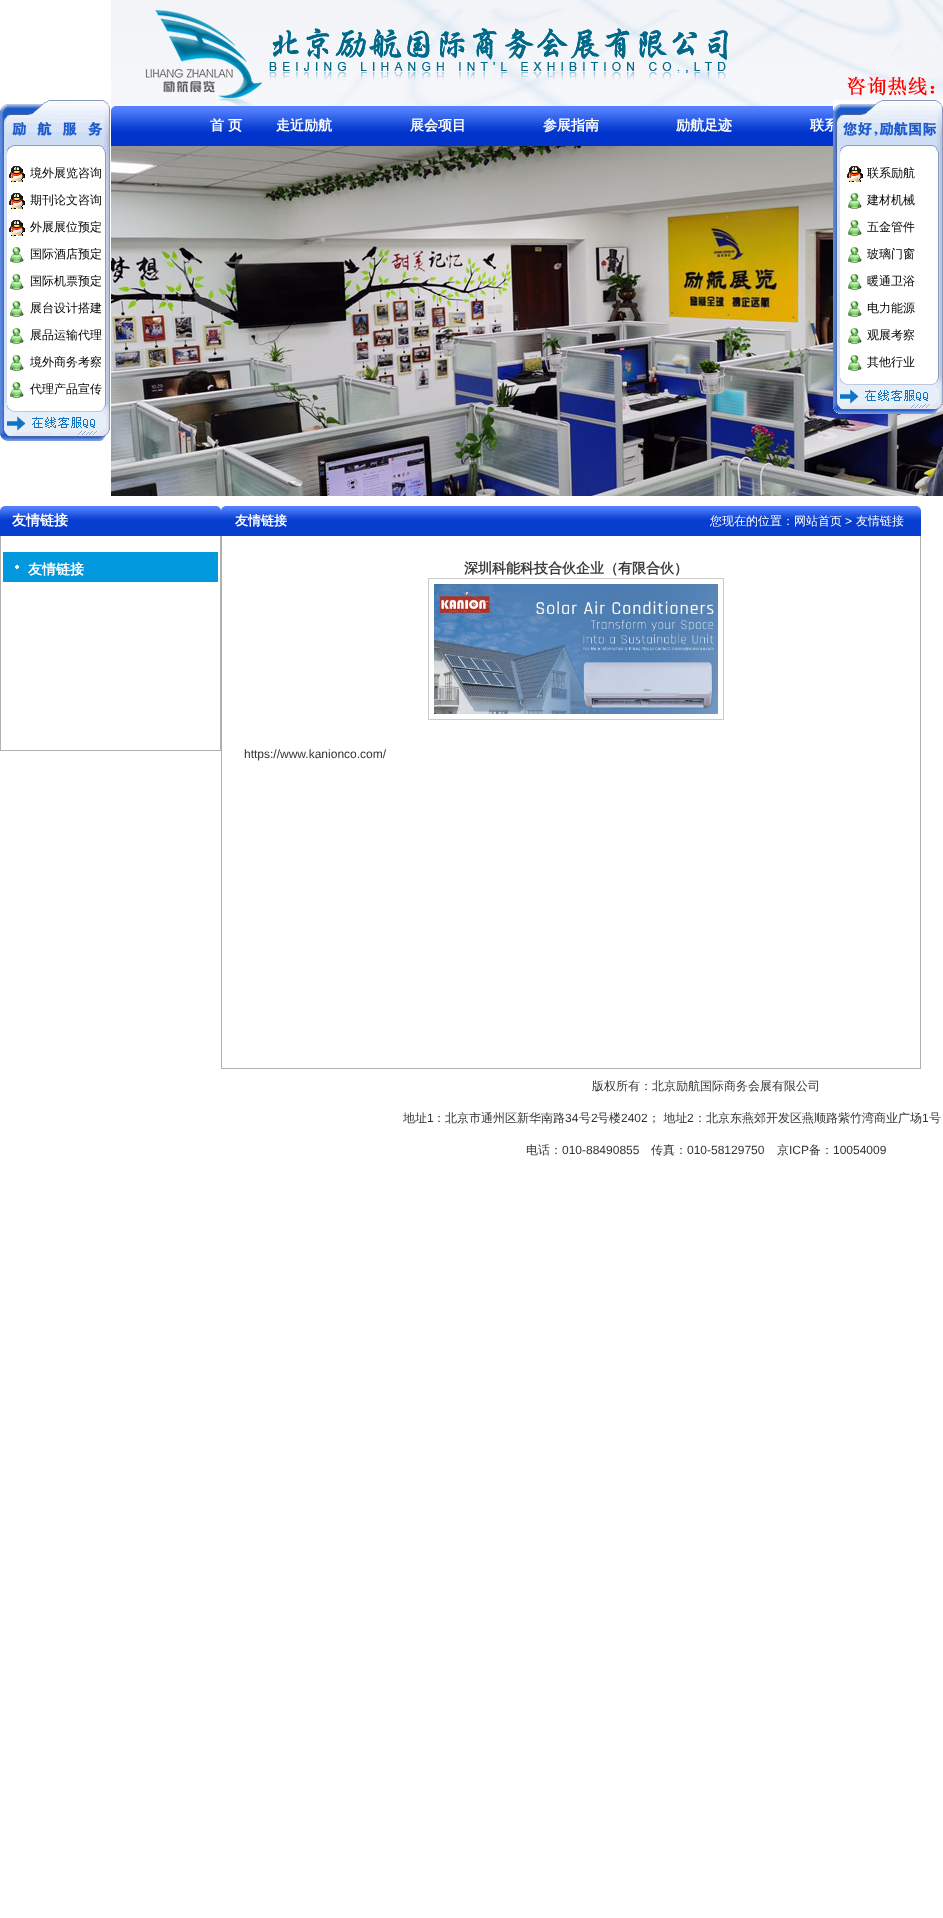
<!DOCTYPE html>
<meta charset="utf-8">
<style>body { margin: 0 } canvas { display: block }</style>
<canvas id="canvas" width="943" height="1918"></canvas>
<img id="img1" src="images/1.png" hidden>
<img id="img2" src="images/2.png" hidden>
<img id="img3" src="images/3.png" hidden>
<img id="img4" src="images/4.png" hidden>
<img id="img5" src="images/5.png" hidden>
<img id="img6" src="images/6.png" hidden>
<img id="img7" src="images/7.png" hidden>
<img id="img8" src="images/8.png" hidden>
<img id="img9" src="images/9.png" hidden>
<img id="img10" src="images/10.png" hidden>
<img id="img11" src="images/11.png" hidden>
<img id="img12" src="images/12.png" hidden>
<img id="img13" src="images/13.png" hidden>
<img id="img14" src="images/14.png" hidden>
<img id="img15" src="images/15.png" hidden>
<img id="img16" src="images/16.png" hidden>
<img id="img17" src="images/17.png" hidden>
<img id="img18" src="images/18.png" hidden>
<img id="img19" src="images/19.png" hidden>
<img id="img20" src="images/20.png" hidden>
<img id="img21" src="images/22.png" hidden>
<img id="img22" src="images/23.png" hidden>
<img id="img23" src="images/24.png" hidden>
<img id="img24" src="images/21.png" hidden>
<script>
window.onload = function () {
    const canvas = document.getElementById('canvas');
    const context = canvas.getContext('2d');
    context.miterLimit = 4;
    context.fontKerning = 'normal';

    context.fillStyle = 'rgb(255, 255, 255)';
    context.fillRect(0, 0, 943, 1918);
    context.drawImage(document.getElementById('img1'), 111, 0, 619, 106);
    context.drawImage(document.getElementById('img2'), 730, 0, 213, 106);
    context.drawImage(document.getElementById('img3'), 847, 76, 88, 20);
    context.drawImage(document.getElementById('img4'), 111, 106, 4, 40);
    context.drawImage(document.getElementById('img5'), 115, 106, 718, 40);
    context.drawImage(document.getElementById('img6'), 111, 146, 832, 350);
    context.drawImage(document.getElementById('img7'), 0, 506, 4, 30);
    context.drawImage(document.getElementById('img8'), 4, 506, 213, 30);
    context.drawImage(document.getElementById('img9'), 217, 506, 4, 30);
    context.fillStyle = 'rgb(176, 176, 176)';
    context.fillRect(220, 536, 1, 215);
    context.fillRect(0, 750, 221, 1);
    context.fillRect(0, 536, 1, 215);
    context.drawImage(document.getElementById('img10'), 3, 552, 215, 30);
    context.drawImage(document.getElementById('img7'), 221, 506, 4, 30);
    context.drawImage(document.getElementById('img11'), 225, 506, 159, 30);
    context.drawImage(document.getElementById('img12'), 384, 506, 533, 30);
    context.drawImage(document.getElementById('img9'), 917, 506, 4, 30);
    context.fillRect(920, 536, 1, 533);
    context.fillRect(221, 1068, 700, 1);
    context.fillRect(221, 536, 1, 533);
    context.strokeStyle = 'rgb(204, 204, 204)';
    context.strokeRect(428.5, 578.5, 295, 141);
    context.drawImage(document.getElementById('img13'), 434, 584, 284, 130);
    context.drawImage(document.getElementById('img14'), 0, 100, 110, 55);
    context.drawImage(document.getElementById('img15'), 0, 155, 110, 248);
    context.drawImage(document.getElementById('img16'), 9, 166, 16, 16);
    context.drawImage(document.getElementById('img17'), 9, 193, 16, 16);
    context.drawImage(document.getElementById('img18'), 9, 220, 16, 16);
    context.drawImage(document.getElementById('img19'), 10, 247, 15, 16);
    context.drawImage(document.getElementById('img19'), 10, 274, 15, 16);
    context.drawImage(document.getElementById('img19'), 10, 301, 15, 16);
    context.drawImage(document.getElementById('img19'), 10, 328, 15, 16);
    context.drawImage(document.getElementById('img19'), 10, 355, 15, 16);
    context.drawImage(document.getElementById('img19'), 10, 382, 15, 16);
    context.drawImage(document.getElementById('img20'), 0, 403, 110, 38);
    context.drawImage(document.getElementById('img21'), 833, 155, 110, 221);
    context.drawImage(document.getElementById('img22'), 847, 166, 16, 16);
    context.drawImage(document.getElementById('img19'), 848, 193, 15, 16);
    context.drawImage(document.getElementById('img19'), 848, 220, 15, 16);
    context.drawImage(document.getElementById('img19'), 848, 247, 15, 16);
    context.drawImage(document.getElementById('img19'), 848, 274, 15, 16);
    context.drawImage(document.getElementById('img19'), 848, 301, 15, 16);
    context.drawImage(document.getElementById('img19'), 848, 328, 15, 16);
    context.drawImage(document.getElementById('img19'), 848, 355, 15, 16);
    context.drawImage(document.getElementById('img23'), 833, 376, 110, 38);
    context.font = 'bold 14px WenQuanYi Zen Hei';
    context.fillStyle = 'rgb(255, 255, 255)';
    context.fillText('首', 210, 130);
    context.fillText('页', 228, 130);
    context.fillText('走近励航', 276, 130);
    context.fillText('展会项目', 410, 130);
    context.fillText('参展指南', 543, 130);
    context.fillText('励航足迹', 676, 130);
    context.fillText('联系', 810, 130);
    context.fillText('友情链接', 12, 525);
    context.fillText('友情链接', 28, 574);
    context.font = 'bold 13px WenQuanYi Zen Hei';
    context.fillText('友情链接', 235, 525);
    context.font = '500 12px WenQuanYi Zen Hei';
    context.fillText('您现在的位置：网站首页', 710, 525);
    context.font = '12px Liberation Sans';
    context.fillText('>', 845, 525);
    context.font = '500 12px WenQuanYi Zen Hei';
    context.fillText('友情链接', 856, 525);
    context.font = 'bold 14px WenQuanYi Zen Hei';
    context.fillStyle = 'rgb(60, 60, 60)';
    context.fillText('深圳科能科技合伙企业（有限合伙）', 464, 573);
    context.font = '12px Liberation Sans';
    context.fillStyle = 'rgb(51, 51, 51)';
    context.fillText('https://www.kanionco.com/', 244, 758);
    context.font = '500 12px WenQuanYi Zen Hei';
    context.fillText('版权所有：北京励航国际商务会展有限公司', 592, 1090);
    context.fillText('地址', 403, 1122);
    context.font = '12px Liberation Sans';
    context.fillText('1', 427, 1122);
    context.font = '500 12px WenQuanYi Zen Hei';
    context.fillText('：北京市通州区新华南路', 433, 1122);
    context.font = '12px Liberation Sans';
    context.fillText('34', 565, 1122);
    context.font = '500 12px WenQuanYi Zen Hei';
    context.fillText('号', 579, 1122);
    context.font = '12px Liberation Sans';
    context.fillText('2', 591, 1122);
    context.font = '500 12px WenQuanYi Zen Hei';
    context.fillText('号楼', 597, 1122);
    context.font = '12px Liberation Sans';
    context.fillText('2402', 621, 1122);
    context.font = '500 12px WenQuanYi Zen Hei';
    context.fillText('； 地址', 648, 1122);
    context.font = '12px Liberation Sans';
    context.fillText('2', 687, 1122);
    context.font = '500 12px WenQuanYi Zen Hei';
    context.fillText('：北京东燕郊开发区燕顺路紫竹湾商业广场', 694, 1122);
    context.font = '12px Liberation Sans';
    context.fillText('1', 922, 1122);
    context.font = '500 12px WenQuanYi Zen Hei';
    context.fillText('号', 929, 1122);
    context.fillText('电话：', 526, 1154);
    context.font = '12px Liberation Sans';
    context.fillText('010-88490855', 562, 1154);
    context.font = '500 12px WenQuanYi Zen Hei';
    context.fillText('传真：', 651, 1154);
    context.font = '12px Liberation Sans';
    context.fillText('010-58129750', 687, 1154);
    context.font = '500 12px WenQuanYi Zen Hei';
    context.fillText('京', 777, 1154);
    context.font = '12px Liberation Sans';
    context.fillText('ICP', 789, 1154);
    context.font = '500 12px WenQuanYi Zen Hei';
    context.fillText('备：', 809, 1154);
    context.font = '12px Liberation Sans';
    context.fillText('10054009', 833, 1154);
    context.font = '500 12px WenQuanYi Zen Hei';
    context.fillStyle = 'rgb(0, 0, 0)';
    context.fillText('境外展览咨询', 30, 177);
    context.fillText('期刊论文咨询', 30, 204);
    context.fillText('外展展位预定', 30, 231);
    context.fillText('国际酒店预定', 30, 258);
    context.fillText('国际机票预定', 30, 285);
    context.fillText('展台设计搭建', 30, 312);
    context.fillText('展品运输代理', 30, 339);
    context.fillText('境外商务考察', 30, 366);
    context.fillText('代理产品宣传', 30, 393);
    context.drawImage(document.getElementById('img24'), 833, 100, 110, 55);
    context.fillText('联系励航', 867, 177);
    context.fillText('建材机械', 867, 204);
    context.fillText('五金管件', 867, 231);
    context.fillText('玻璃门窗', 867, 258);
    context.fillText('暖通卫浴', 867, 285);
    context.fillText('电力能源', 867, 312);
    context.fillText('观展考察', 867, 339);
    context.fillText('其他行业', 867, 366);
};
</script>
